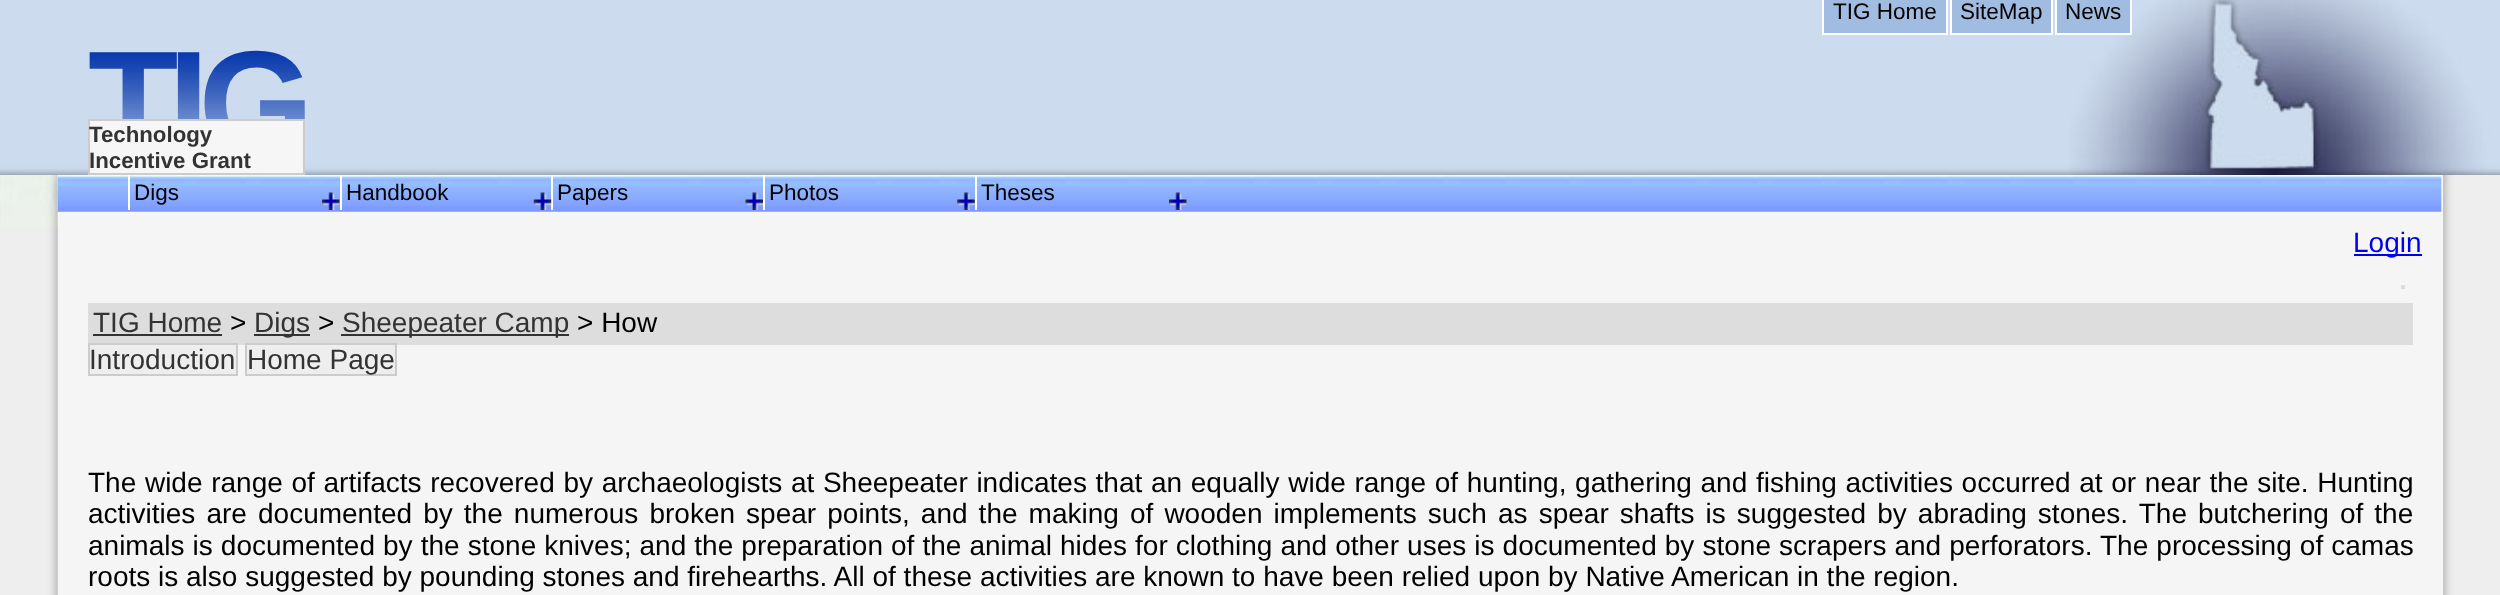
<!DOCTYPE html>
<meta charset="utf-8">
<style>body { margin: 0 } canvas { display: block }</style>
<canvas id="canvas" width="2500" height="595"></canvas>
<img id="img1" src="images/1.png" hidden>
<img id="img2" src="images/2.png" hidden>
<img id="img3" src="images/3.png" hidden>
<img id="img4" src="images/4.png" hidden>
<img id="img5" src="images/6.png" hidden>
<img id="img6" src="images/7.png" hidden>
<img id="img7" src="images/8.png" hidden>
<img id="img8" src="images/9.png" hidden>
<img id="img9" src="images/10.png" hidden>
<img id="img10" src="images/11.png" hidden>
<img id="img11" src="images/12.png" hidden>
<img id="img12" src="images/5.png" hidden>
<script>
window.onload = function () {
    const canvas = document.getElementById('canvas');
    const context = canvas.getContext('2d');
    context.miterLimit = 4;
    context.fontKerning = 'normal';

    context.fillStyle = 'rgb(245, 245, 245)';
    context.fillRect(0, 0, 2500, 595);
    context.drawImage(document.getElementById('img1'), 0, 227, 58, 368);
    context.drawImage(document.getElementById('img2'), 2443, 175, 57, 420);
    context.drawImage(document.getElementById('img3'), 0, 0, 2500, 175);
    context.drawImage(document.getElementById('img4'), 2069, 0, 421, 175);
    context.fillStyle = 'rgb(161, 188, 225)';
    context.fillRect(1824, 0, 122, 33);
    context.fillStyle = 'rgb(255, 255, 255)';
    context.fillRect(1946, 0, 2, 35);
    context.fillRect(1822, 33, 126, 2);
    context.fillRect(1822, 0, 2, 35);
    context.fillStyle = 'rgb(161, 188, 225)';
    context.fillRect(1952, 0, 99, 33);
    context.fillStyle = 'rgb(255, 255, 255)';
    context.fillRect(2051, 0, 2, 35);
    context.fillRect(1950, 33, 103, 2);
    context.fillRect(1950, 0, 2, 35);
    context.fillStyle = 'rgb(161, 188, 225)';
    context.fillRect(2057, 0, 73, 33);
    context.fillStyle = 'rgb(255, 255, 255)';
    context.fillRect(2130, 0, 2, 35);
    context.fillRect(2055, 33, 77, 2);
    context.fillRect(2055, 0, 2, 35);
    context.drawImage(document.getElementById('img5'), 0, 175, 60, 52);
    context.drawImage(document.getElementById('img6'), 57, 175, 2385, 37);
    context.fillRect(128, 175, 2, 35);
    context.drawImage(document.getElementById('img7'), 322, 192, 18, 18);
    context.fillRect(340, 175, 2, 35);
    context.fillRect(551, 175, 2, 35);
    context.drawImage(document.getElementById('img8'), 533, 192, 19, 18);
    context.drawImage(document.getElementById('img9'), 745, 192, 18, 18);
    context.fillRect(763, 175, 2, 35);
    context.drawImage(document.getElementById('img10'), 957, 192, 18, 18);
    context.fillRect(975, 175, 2, 35);
    context.drawImage(document.getElementById('img11'), 1169, 192, 18, 18);
    context.fillStyle = 'rgb(0, 0, 238)';
    context.fillRect(2354, 254, 68, 2);
    context.fillStyle = 'rgb(221, 221, 221)';
    context.fillRect(2401, 285, 4, 4);
    context.fillRect(88, 303, 2325, 42);
    context.fillStyle = 'rgb(51, 51, 51)';
    context.fillRect(93, 334, 129, 2);
    context.fillRect(254, 334, 56, 2);
    context.fillRect(341, 334, 228, 2);
    context.fillStyle = 'rgb(238, 238, 238)';
    context.beginPath();
    context.rect(89, 344, 148, 31);
    context.fill();
    context.strokeStyle = 'rgb(204, 204, 204)';
    context.lineWidth = 2;
    context.stroke();
    context.beginPath();
    context.rect(246, 344, 150, 31);
    context.fill();
    context.stroke();
    context.font = '22.5px Liberation Sans';
    context.fillStyle = 'rgb(0, 0, 0)';
    context.fillText('TIG Home', 1833, 19);
    context.fillText('SiteMap', 1960, 19);
    context.fillText('News', 2065, 19);
    context.letterSpacing = '-10.5px';
    context.font = 'bold 148px Liberation Sans';
    context.fillStyle = 'rgb(0, 51, 170)';
    context.fillText('TIG', 88, 154);
    context.drawImage(document.getElementById('img12'), 88, 50, 217, 69);
    context.fillStyle = 'rgb(246, 246, 246)';
    context.beginPath();
    context.rect(89, 120, 215, 54);
    context.fill();
    context.stroke();
    context.letterSpacing = '0px';
    context.font = 'bold 22.25px Liberation Sans';
    context.fillStyle = 'rgb(51, 51, 51)';
    context.fillText('Technology', 89, 142);
    context.fillText('Incentive Grant', 89, 168);
    context.font = '22.5px Liberation Sans';
    context.fillStyle = 'rgb(0, 0, 0)';
    context.fillText('Digs', 134, 200);
    context.fillText('Handbook', 346, 200);
    context.fillText('Papers', 557, 200);
    context.fillText('Photos', 769, 200);
    context.fillText('Theses', 981, 200);
    context.font = '28px Liberation Sans';
    context.fillStyle = 'rgb(0, 0, 238)';
    context.fillText('Login', 2353, 252);
    context.fillStyle = 'rgb(51, 51, 51)';
    context.fillText('TIG Home', 93, 332);
    context.fillStyle = 'rgb(0, 0, 0)';
    context.fillText('>', 230, 332);
    context.fillStyle = 'rgb(51, 51, 51)';
    context.fillText('Digs', 254, 332);
    context.fillStyle = 'rgb(0, 0, 0)';
    context.fillText('>', 318, 332);
    context.fillStyle = 'rgb(51, 51, 51)';
    context.fillText('Sheepeater Camp', 342, 332);
    context.fillStyle = 'rgb(0, 0, 0)';
    context.fillText('> How', 577, 332);
    context.fillStyle = 'rgb(51, 51, 51)';
    context.fillText('Introduction', 89, 369);
    context.fillText('Home Page', 247, 369);
    context.wordSpacing = '0.9px';
    context.fillStyle = 'rgb(0, 0, 0)';
    context.fillText('The wide range of artifacts recovered by archaeologists at Sheepeater indicates that an equally wide range of hunting, gathering and fishing activities occurred at or near the site. Hunting', 88, 492);
    context.wordSpacing = '3.3px';
    context.fillText('activities are documented by the numerous broken spear points, and the making of wooden implements such as spear shafts is suggested by abrading stones. The butchering of the', 88, 523);
    context.wordSpacing = '0.3px';
    context.fillText('animals is documented by the stone knives; and the preparation of the animal hides for clothing and other uses is documented by stone scrapers and perforators. The processing of camas', 88, 555);
    context.wordSpacing = '0px';
    context.fillText('roots is also suggested by pounding stones and firehearths. All of these activities are known to have been relied upon by Native American in the region.', 88, 586);
};
</script>
